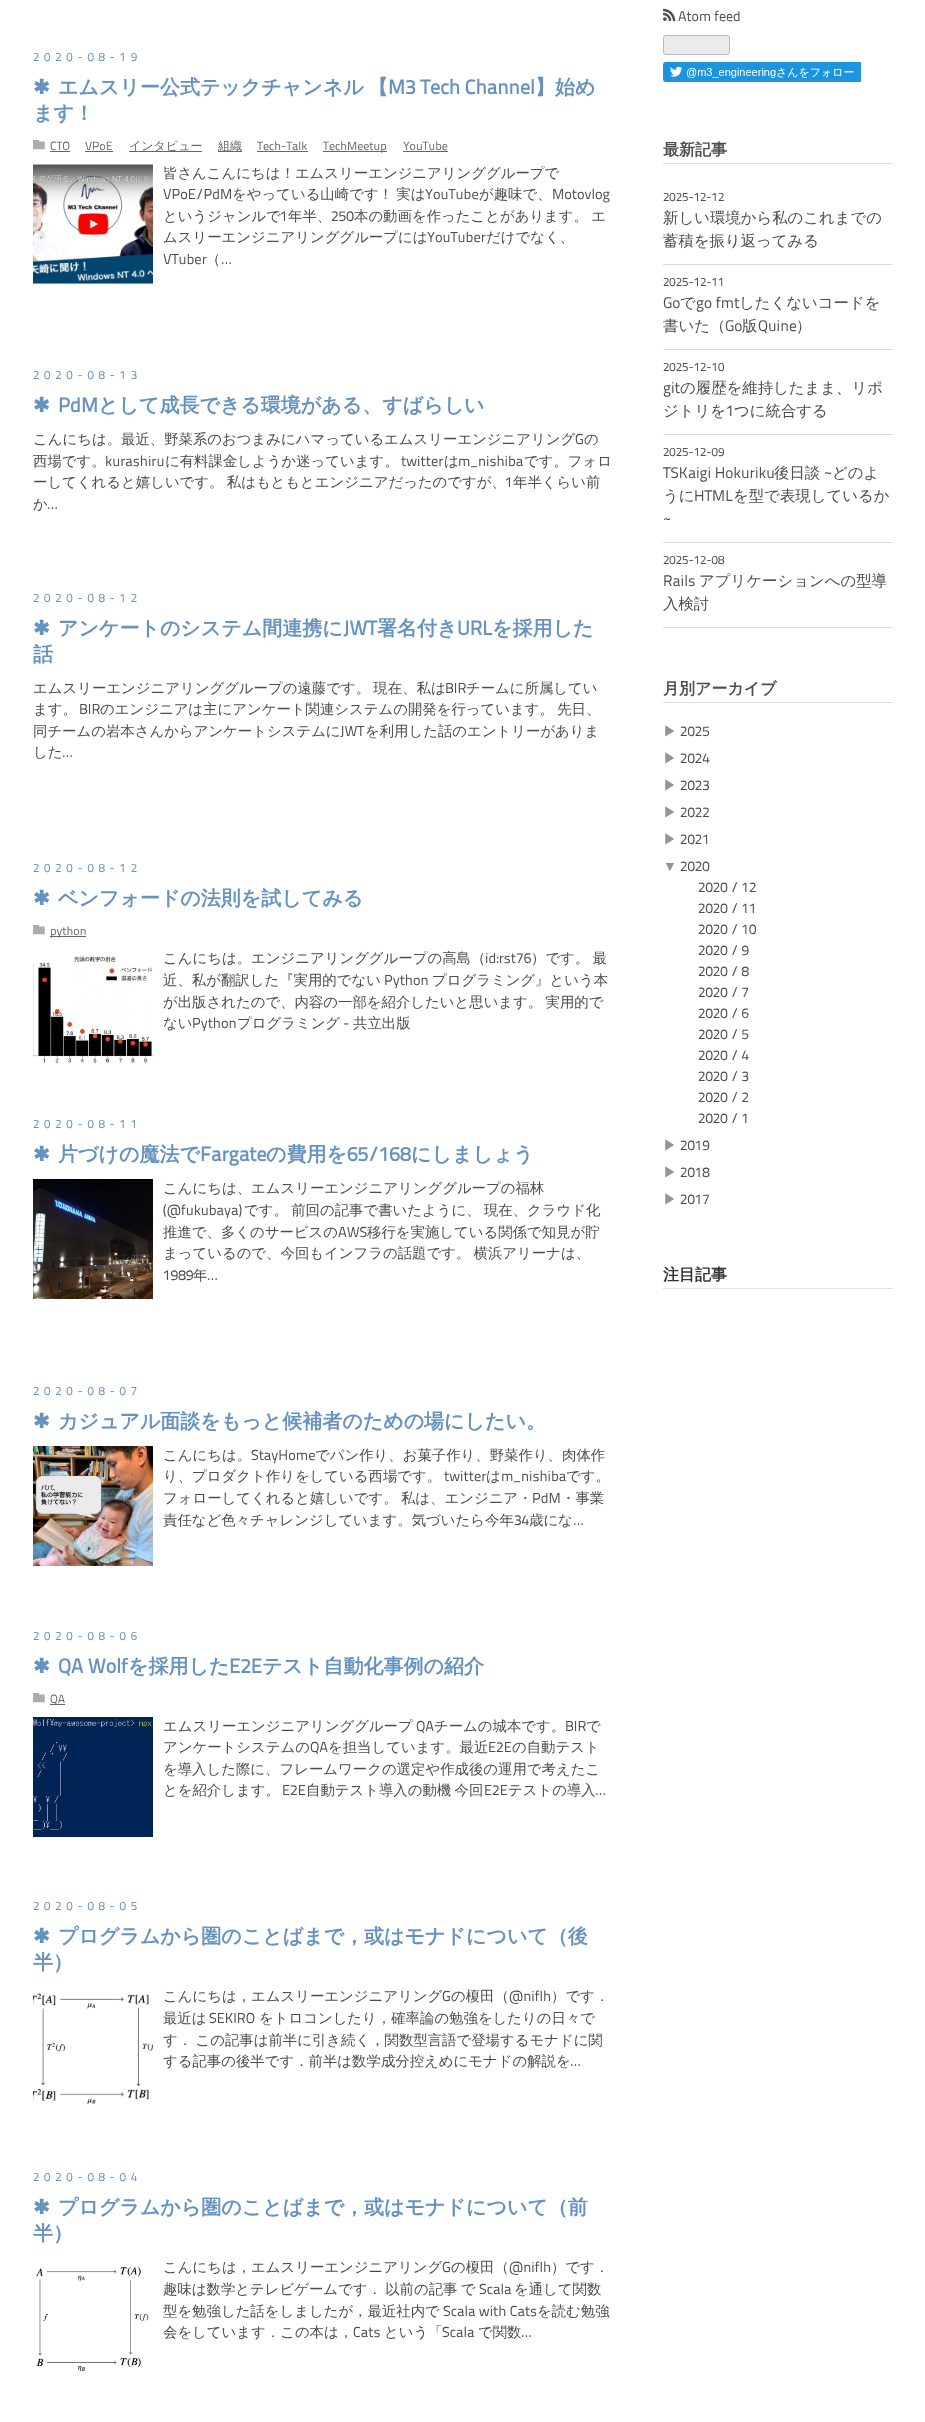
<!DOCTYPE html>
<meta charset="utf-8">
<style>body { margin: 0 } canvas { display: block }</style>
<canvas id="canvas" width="925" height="2422"></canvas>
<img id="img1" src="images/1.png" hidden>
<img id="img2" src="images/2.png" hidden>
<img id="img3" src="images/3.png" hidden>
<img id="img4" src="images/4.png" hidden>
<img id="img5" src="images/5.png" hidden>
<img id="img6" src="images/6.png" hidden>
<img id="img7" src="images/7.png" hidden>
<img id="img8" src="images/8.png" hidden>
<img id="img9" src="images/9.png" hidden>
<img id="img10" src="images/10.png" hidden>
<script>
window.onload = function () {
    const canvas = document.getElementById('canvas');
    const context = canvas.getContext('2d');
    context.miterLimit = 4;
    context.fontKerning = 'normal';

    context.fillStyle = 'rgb(255, 255, 255)';
    context.fillRect(0, 0, 925, 2422);
    context.drawImage(document.getElementById('img1'), 33, 140, 12, 10);
    context.fillStyle = 'rgb(102, 102, 102)';
    context.fillRect(50, 151, 20, 1);
    context.fillRect(85, 151, 28, 1);
    context.fillRect(129, 151, 73, 1);
    context.fillRect(218, 151, 24, 1);
    context.fillRect(257, 151, 51, 1);
    context.fillRect(323, 151, 64, 1);
    context.fillRect(403, 151, 45, 1);
    context.drawImage(document.getElementById('img2'), 33, 164, 120, 120);
    context.drawImage(document.getElementById('img1'), 33, 925, 12, 10);
    context.fillRect(50, 936, 36, 1);
    context.drawImage(document.getElementById('img3'), 33, 956, 120, 108);
    context.drawImage(document.getElementById('img4'), 33, 1179, 120, 120);
    context.drawImage(document.getElementById('img5'), 33, 1446, 120, 120);
    context.drawImage(document.getElementById('img1'), 33, 1693, 12, 10);
    context.fillRect(50, 1704, 15, 1);
    context.drawImage(document.getElementById('img6'), 33, 1717, 120, 120);
    context.drawImage(document.getElementById('img7'), 33, 1993, 120, 111);
    context.drawImage(document.getElementById('img8'), 36, 2267, 113, 105);
    context.drawImage(document.getElementById('img9'), 663, 8, 13, 13);
    context.fillStyle = 'rgb(235, 235, 235)';
    context.beginPath();
    context.roundRect(663.5, 35.5, 66, 19, 2.5);
    context.fill();
    context.strokeStyle = 'rgb(187, 187, 187)';
    context.stroke();
    context.drawImage(document.getElementById('img10'), 663, 62, 198, 20);
    context.fillStyle = 'rgb(223, 223, 223)';
    context.fillRect(663, 163, 230, 1);
    context.fillStyle = 'rgb(221, 221, 221)';
    context.fillRect(663, 264, 230, 1);
    context.fillRect(663, 349, 230, 1);
    context.fillRect(663, 434, 230, 1);
    context.fillRect(663, 542, 230, 1);
    context.fillRect(663, 627, 230, 1);
    context.fillStyle = 'rgb(223, 223, 223)';
    context.fillRect(663, 702, 230, 1);
    context.fillRect(663, 1288, 230, 1);
    context.letterSpacing = '4.75px';
    context.font = '12px "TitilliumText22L"';
    context.fillStyle = 'rgb(102, 146, 192)';
    context.fillText('2020-08-19', 33, 61);
    context.letterSpacing = '0px';
    context.font = 'bold 20px DejaVu Sans';
    context.fillText('✱', 33, 94);
    context.font = 'bold 20px WenQuanYi Zen Hei';
    context.fillText('エムスリー公式テックチャンネル', 58, 94);
    context.fillText('【', 368, 94);
    context.font = 'bold 20px "TitilliumText22L"';
    context.fillText('M3 Tech Channel', 388, 94);
    context.font = 'bold 20px WenQuanYi Zen Hei';
    context.fillText('】始め', 535, 94);
    context.fillText('ます！', 33, 120);
    context.font = '12px "TitilliumText22L"';
    context.fillStyle = 'rgb(102, 102, 102)';
    context.fillText('CTO', 50, 150);
    context.fillText('VPoE', 85, 150);
    context.font = '500 12px WenQuanYi Zen Hei';
    context.fillText('インタビュー', 129, 150);
    context.fillText('組織', 218, 150);
    context.font = '12px "TitilliumText22L"';
    context.fillText('Tech-Talk', 257, 150);
    context.fillText('TechMeetup', 323, 150);
    context.fillText('YouTube', 403, 150);
    context.font = '500 14.4px WenQuanYi Zen Hei';
    context.fillStyle = 'rgb(77, 77, 77)';
    context.fillText('皆さんこんにちは！エムスリーエンジニアリンググループで', 163, 178);
    context.font = '14.4px "TitilliumText22L"';
    context.fillText('VPoE/PdM', 163, 199);
    context.wordSpacing = '-1px';
    context.font = '500 14.4px WenQuanYi Zen Hei';
    context.fillText('をやっている山崎です！ 実は', 232, 199);
    context.wordSpacing = '0px';
    context.font = '14.4px "TitilliumText22L"';
    context.fillText('YouTube', 425, 199);
    context.font = '500 14.4px WenQuanYi Zen Hei';
    context.fillText('が趣味で、', 479, 199);
    context.font = '14.4px "TitilliumText22L"';
    context.fillText('Motovlog', 552, 199);
    context.font = '500 14.4px WenQuanYi Zen Hei';
    context.fillText('というジャンルで', 163, 221);
    context.font = '14.4px "TitilliumText22L"';
    context.fillText('1', 280, 221);
    context.font = '500 14.4px WenQuanYi Zen Hei';
    context.fillText('年半、', 288, 221);
    context.font = '14.4px "TitilliumText22L"';
    context.fillText('250', 331, 221);
    context.wordSpacing = '-1px';
    context.font = '500 14.4px WenQuanYi Zen Hei';
    context.fillText('本の動画を作ったことがあります。 エ', 354, 221);
    context.wordSpacing = '0px';
    context.fillText('ムスリーエンジニアリンググループには', 163, 242);
    context.font = '14.4px "TitilliumText22L"';
    context.fillText('YouTuber', 427, 242);
    context.font = '500 14.4px WenQuanYi Zen Hei';
    context.fillText('だけでなく、', 486, 242);
    context.font = '14.4px "TitilliumText22L"';
    context.fillText('VTuber', 163, 264);
    context.font = '500 14.4px WenQuanYi Zen Hei';
    context.fillText('（', 206, 264);
    context.font = '14.4px "TitilliumText22L"';
    context.fillText('…', 221, 264);
    context.letterSpacing = '4.75px';
    context.font = '12px "TitilliumText22L"';
    context.fillStyle = 'rgb(102, 146, 192)';
    context.fillText('2020-08-13', 33, 379);
    context.letterSpacing = '0px';
    context.font = 'bold 20px DejaVu Sans';
    context.fillText('✱', 33, 412);
    context.font = 'bold 20px "TitilliumText22L"';
    context.fillText('PdM', 58, 412);
    context.font = 'bold 20px WenQuanYi Zen Hei';
    context.fillText('として成長できる環境がある、すばらしい', 98, 412);
    context.font = '500 14.4px WenQuanYi Zen Hei';
    context.fillStyle = 'rgb(77, 77, 77)';
    context.fillText('こんにちは。最近、野菜系のおつまみにハマっているエムスリーエンジニアリング', 33, 444);
    context.font = '14.4px "TitilliumText22L"';
    context.fillText('G', 575, 444);
    context.font = '500 14.4px WenQuanYi Zen Hei';
    context.fillText('の', 584, 444);
    context.fillText('西場です。', 33, 466);
    context.font = '14.4px "TitilliumText22L"';
    context.fillText('kurashiru', 105, 466);
    context.font = '500 14.4px WenQuanYi Zen Hei';
    context.fillText('に有料課金しようか迷っています。', 165, 466);
    context.font = '14.4px "TitilliumText22L"';
    context.fillText('twitter', 401, 466);
    context.font = '500 14.4px WenQuanYi Zen Hei';
    context.fillText('は', 444, 466);
    context.font = '14.4px "TitilliumText22L"';
    context.fillText('m_nishiba', 458, 466);
    context.font = '500 14.4px WenQuanYi Zen Hei';
    context.fillText('です。フォロ', 524, 466);
    context.wordSpacing = '-1px';
    context.fillText('ーしてくれると嬉しいです。 私はもともとエンジニアだったのですが、', 33, 487);
    context.wordSpacing = '0px';
    context.font = '14.4px "TitilliumText22L"';
    context.fillText('1', 505, 487);
    context.font = '500 14.4px WenQuanYi Zen Hei';
    context.fillText('年半くらい前', 513, 487);
    context.fillText('か', 33, 509);
    context.font = '14.4px "TitilliumText22L"';
    context.fillText('…', 47, 509);
    context.letterSpacing = '4.75px';
    context.font = '12px "TitilliumText22L"';
    context.fillStyle = 'rgb(102, 146, 192)';
    context.fillText('2020-08-12', 33, 602);
    context.letterSpacing = '0px';
    context.font = 'bold 20px DejaVu Sans';
    context.fillText('✱', 33, 635);
    context.font = 'bold 20px WenQuanYi Zen Hei';
    context.fillText('アンケートのシステム間連携に', 58, 635);
    context.font = 'bold 20px "TitilliumText22L"';
    context.fillText('JWT', 343, 635);
    context.font = 'bold 20px WenQuanYi Zen Hei';
    context.fillText('署名付き', 377, 635);
    context.font = 'bold 20px "TitilliumText22L"';
    context.fillText('URL', 457, 635);
    context.font = 'bold 20px WenQuanYi Zen Hei';
    context.fillText('を採用した', 492, 635);
    context.fillText('話', 33, 661);
    context.wordSpacing = '-1px';
    context.font = '500 14.4px WenQuanYi Zen Hei';
    context.fillStyle = 'rgb(77, 77, 77)';
    context.fillText('エムスリーエンジニアリンググループの遠藤です。 現在、私は', 33, 693);
    context.wordSpacing = '0px';
    context.font = '14.4px "TitilliumText22L"';
    context.fillText('BIR', 445, 693);
    context.font = '500 14.4px WenQuanYi Zen Hei';
    context.fillText('チームに所属してい', 466, 693);
    context.fillText('ます。', 33, 714);
    context.font = '14.4px "TitilliumText22L"';
    context.fillText('BIR', 79, 714);
    context.wordSpacing = '-1px';
    context.font = '500 14.4px WenQuanYi Zen Hei';
    context.fillText('のエンジニアは主にアンケート関連システムの開発を行っています。 先日、', 100, 714);
    context.wordSpacing = '0px';
    context.fillText('同チームの岩本さんからアンケートシステムに', 33, 736);
    context.font = '14.4px "TitilliumText22L"';
    context.fillText('JWT', 340, 736);
    context.font = '500 14.4px WenQuanYi Zen Hei';
    context.fillText('を利用した話のエントリーがありま', 365, 736);
    context.fillText('した', 33, 757);
    context.font = '14.4px "TitilliumText22L"';
    context.fillText('…', 62, 757);
    context.letterSpacing = '4.75px';
    context.font = '12px "TitilliumText22L"';
    context.fillStyle = 'rgb(102, 146, 192)';
    context.fillText('2020-08-12', 33, 872);
    context.letterSpacing = '0px';
    context.font = 'bold 20px DejaVu Sans';
    context.fillText('✱', 33, 905);
    context.font = 'bold 20px WenQuanYi Zen Hei';
    context.fillText('ベンフォードの法則を試してみる', 58, 905);
    context.font = '12px "TitilliumText22L"';
    context.fillStyle = 'rgb(102, 102, 102)';
    context.fillText('python', 50, 935);
    context.font = '500 14.4px WenQuanYi Zen Hei';
    context.fillStyle = 'rgb(77, 77, 77)';
    context.fillText('こんにちは。エンジニアリンググループの高島（', 163, 963);
    context.font = '14.4px "TitilliumText22L"';
    context.fillText('id:rst76', 485, 963);
    context.wordSpacing = '-1px';
    context.font = '500 14.4px WenQuanYi Zen Hei';
    context.fillText('）です。 最', 531, 963);
    context.wordSpacing = '0px';
    context.fillText('近、私が翻訳した『実用的でない', 163, 985);
    context.font = '14.4px "TitilliumText22L"';
    context.fillText('Python', 384, 985);
    context.font = '500 14.4px WenQuanYi Zen Hei';
    context.fillText('プログラミング』という本', 432, 985);
    context.wordSpacing = '-1px';
    context.fillText('が出版されたので、内容の一部を紹介したいと思います。 実用的で', 163, 1007);
    context.wordSpacing = '0px';
    context.fillText('ない', 163, 1028);
    context.font = '14.4px "TitilliumText22L"';
    context.fillText('Python', 192, 1028);
    context.font = '500 14.4px WenQuanYi Zen Hei';
    context.fillText('プログラミング', 237, 1028);
    context.font = '14.4px "TitilliumText22L"';
    context.fillText('-', 343, 1028);
    context.font = '500 14.4px WenQuanYi Zen Hei';
    context.fillText('共立出版', 353, 1028);
    context.letterSpacing = '4.75px';
    context.font = '12px "TitilliumText22L"';
    context.fillStyle = 'rgb(102, 146, 192)';
    context.fillText('2020-08-11', 33, 1128);
    context.letterSpacing = '0px';
    context.font = 'bold 20px DejaVu Sans';
    context.fillText('✱', 33, 1161);
    context.font = 'bold 20px WenQuanYi Zen Hei';
    context.fillText('片づけの魔法で', 58, 1161);
    context.font = 'bold 20px "TitilliumText22L"';
    context.fillText('Fargate', 200, 1161);
    context.font = 'bold 20px WenQuanYi Zen Hei';
    context.fillText('の費用を', 266, 1161);
    context.font = 'bold 20px "TitilliumText22L"';
    context.fillText('65/168', 347, 1161);
    context.font = 'bold 20px WenQuanYi Zen Hei';
    context.fillText('にしましょう', 411, 1161);
    context.font = '500 14.4px WenQuanYi Zen Hei';
    context.fillStyle = 'rgb(77, 77, 77)';
    context.fillText('こんにちは、エムスリーエンジニアリンググループの福林', 163, 1193);
    context.font = '14.4px "TitilliumText22L"';
    context.fillText('(@fukubaya)', 163, 1215);
    context.wordSpacing = '-1px';
    context.font = '500 14.4px WenQuanYi Zen Hei';
    context.fillText('です。 前回の記事で書いたように、 現在、クラウド化', 244, 1215);
    context.wordSpacing = '0px';
    context.fillText('推進で、多くのサービスの', 163, 1237);
    context.font = '14.4px "TitilliumText22L"';
    context.fillText('AWS', 338, 1237);
    context.font = '500 14.4px WenQuanYi Zen Hei';
    context.fillText('移行を実施している関係で知見が貯', 367, 1237);
    context.wordSpacing = '-1px';
    context.fillText('まっているので、今回もインフラの話題です。 横浜アリーナは、', 163, 1258);
    context.wordSpacing = '0px';
    context.font = '14.4px "TitilliumText22L"';
    context.fillText('1989', 163, 1280);
    context.font = '500 14.4px WenQuanYi Zen Hei';
    context.fillText('年', 193, 1280);
    context.font = '14.4px "TitilliumText22L"';
    context.fillText('…', 207, 1280);
    context.letterSpacing = '4.75px';
    context.font = '12px "TitilliumText22L"';
    context.fillStyle = 'rgb(102, 146, 192)';
    context.fillText('2020-08-07', 33, 1395);
    context.letterSpacing = '0px';
    context.font = 'bold 20px DejaVu Sans';
    context.fillText('✱', 33, 1428);
    context.font = 'bold 20px WenQuanYi Zen Hei';
    context.fillText('カジュアル面談をもっと候補者のための場にしたい。', 58, 1428);
    context.font = '500 14.4px WenQuanYi Zen Hei';
    context.fillStyle = 'rgb(77, 77, 77)';
    context.fillText('こんにちは。', 163, 1460);
    context.font = '14.4px "TitilliumText22L"';
    context.fillText('StayHome', 251, 1460);
    context.font = '500 14.4px WenQuanYi Zen Hei';
    context.fillText('でパン作り、お菓子作り、野菜作り、肉体作', 315, 1460);
    context.fillText('り、プロダクト作りをしている西場です。', 163, 1481);
    context.font = '14.4px "TitilliumText22L"';
    context.fillText('twitter', 444, 1481);
    context.font = '500 14.4px WenQuanYi Zen Hei';
    context.fillText('は', 486, 1481);
    context.font = '14.4px "TitilliumText22L"';
    context.fillText('m_nishiba', 501, 1481);
    context.font = '500 14.4px WenQuanYi Zen Hei';
    context.fillText('です。', 566, 1481);
    context.wordSpacing = '-1px';
    context.fillText('フォローしてくれると嬉しいです。 私は、エンジニア・', 163, 1503);
    context.wordSpacing = '0px';
    context.font = '14.4px "TitilliumText22L"';
    context.fillText('PdM', 532, 1503);
    context.font = '500 14.4px WenQuanYi Zen Hei';
    context.fillText('・事業', 561, 1503);
    context.fillText('責任など色々チャレンジしています。気づいたら今年', 163, 1525);
    context.font = '14.4px "TitilliumText22L"';
    context.fillText('34', 514, 1525);
    context.font = '500 14.4px WenQuanYi Zen Hei';
    context.fillText('歳にな', 529, 1525);
    context.font = '14.4px "TitilliumText22L"';
    context.fillText('…', 573, 1525);
    context.letterSpacing = '4.75px';
    context.font = '12px "TitilliumText22L"';
    context.fillStyle = 'rgb(102, 146, 192)';
    context.fillText('2020-08-06', 33, 1640);
    context.letterSpacing = '0px';
    context.font = 'bold 20px DejaVu Sans';
    context.fillText('✱', 33, 1673);
    context.font = 'bold 20px "TitilliumText22L"';
    context.fillText('QA Wolf', 58, 1673);
    context.font = 'bold 20px WenQuanYi Zen Hei';
    context.fillText('を採用した', 128, 1673);
    context.font = 'bold 20px "TitilliumText22L"';
    context.fillText('E2E', 229, 1673);
    context.font = 'bold 20px WenQuanYi Zen Hei';
    context.fillText('テスト自動化事例の紹介', 262, 1673);
    context.font = '12px "TitilliumText22L"';
    context.fillStyle = 'rgb(102, 102, 102)';
    context.fillText('QA', 50, 1703);
    context.font = '500 14.4px WenQuanYi Zen Hei';
    context.fillStyle = 'rgb(77, 77, 77)';
    context.fillText('エムスリーエンジニアリンググループ', 163, 1731);
    context.font = '14.4px "TitilliumText22L"';
    context.fillText('QA', 416, 1731);
    context.font = '500 14.4px WenQuanYi Zen Hei';
    context.fillText('チームの城本です。', 434, 1731);
    context.font = '14.4px "TitilliumText22L"';
    context.fillText('BIR', 565, 1731);
    context.font = '500 14.4px WenQuanYi Zen Hei';
    context.fillText('で', 586, 1731);
    context.fillText('アンケートシステムの', 163, 1752);
    context.font = '14.4px "TitilliumText22L"';
    context.fillText('QA', 310, 1752);
    context.font = '500 14.4px WenQuanYi Zen Hei';
    context.fillText('を担当しています。最近', 328, 1752);
    context.font = '14.4px "TitilliumText22L"';
    context.fillText('E2E', 488, 1752);
    context.font = '500 14.4px WenQuanYi Zen Hei';
    context.fillText('の自動テスト', 512, 1752);
    context.fillText('を導入した際に、フレームワークの選定や作成後の運用で考えたこ', 163, 1774);
    context.fillText('とを紹介します。', 163, 1795);
    context.font = '14.4px "TitilliumText22L"';
    context.fillText('E2E', 282, 1795);
    context.wordSpacing = '-1px';
    context.font = '500 14.4px WenQuanYi Zen Hei';
    context.fillText('自動テスト導入の動機 今回', 306, 1795);
    context.wordSpacing = '0px';
    context.font = '14.4px "TitilliumText22L"';
    context.fillText('E2E', 484, 1795);
    context.font = '500 14.4px WenQuanYi Zen Hei';
    context.fillText('テストの導入', 508, 1795);
    context.font = '14.4px "TitilliumText22L"';
    context.fillText('…', 595, 1795);
    context.letterSpacing = '4.75px';
    context.font = '12px "TitilliumText22L"';
    context.fillStyle = 'rgb(102, 146, 192)';
    context.fillText('2020-08-05', 33, 1910);
    context.letterSpacing = '0px';
    context.font = 'bold 20px DejaVu Sans';
    context.fillText('✱', 33, 1943);
    context.font = 'bold 20px WenQuanYi Zen Hei';
    context.fillText('プログラムから圏のことばまで，或はモナドについて（後', 58, 1943);
    context.fillText('半）', 33, 1969);
    context.font = '500 14.4px WenQuanYi Zen Hei';
    context.fillStyle = 'rgb(77, 77, 77)';
    context.fillText('こんにちは，エムスリーエンジニアリング', 163, 2001);
    context.font = '14.4px "TitilliumText22L"';
    context.fillText('G', 442, 2001);
    context.font = '500 14.4px WenQuanYi Zen Hei';
    context.fillText('の榎田（', 451, 2001);
    context.font = '14.4px "TitilliumText22L"';
    context.fillText('@niflh', 509, 2001);
    context.font = '500 14.4px WenQuanYi Zen Hei';
    context.fillText('）です．', 551, 2001);
    context.fillText('最近は', 163, 2023);
    context.font = '14.4px "TitilliumText22L"';
    context.fillText('SEKIRO', 209, 2023);
    context.font = '500 14.4px WenQuanYi Zen Hei';
    context.fillText('をトロコンしたり，確率論の勉強をしたりの日々で', 259, 2023);
    context.wordSpacing = '-1px';
    context.fillText('す． この記事は前半に引き続く，関数型言語で登場するモナドに関', 163, 2045);
    context.wordSpacing = '0px';
    context.fillText('する記事の後半です．前半は数学成分控えめにモナドの解説を', 163, 2066);
    context.font = '14.4px "TitilliumText22L"';
    context.fillText('…', 570, 2066);
    context.letterSpacing = '4.75px';
    context.font = '12px "TitilliumText22L"';
    context.fillStyle = 'rgb(102, 146, 192)';
    context.fillText('2020-08-04', 33, 2181);
    context.letterSpacing = '0px';
    context.font = 'bold 20px DejaVu Sans';
    context.fillText('✱', 33, 2214);
    context.font = 'bold 20px WenQuanYi Zen Hei';
    context.fillText('プログラムから圏のことばまで，或はモナドについて（前', 58, 2214);
    context.fillText('半）', 33, 2240);
    context.font = '500 14.4px WenQuanYi Zen Hei';
    context.fillStyle = 'rgb(77, 77, 77)';
    context.fillText('こんにちは，エムスリーエンジニアリング', 163, 2272);
    context.font = '14.4px "TitilliumText22L"';
    context.fillText('G', 442, 2272);
    context.font = '500 14.4px WenQuanYi Zen Hei';
    context.fillText('の榎田（', 451, 2272);
    context.font = '14.4px "TitilliumText22L"';
    context.fillText('@niflh', 509, 2272);
    context.font = '500 14.4px WenQuanYi Zen Hei';
    context.fillText('）です．', 551, 2272);
    context.wordSpacing = '-1px';
    context.fillText('趣味は数学とテレビゲームです． 以前の記事 で', 163, 2294);
    context.wordSpacing = '0px';
    context.font = '14.4px "TitilliumText22L"';
    context.fillText('Scala', 479, 2294);
    context.font = '500 14.4px WenQuanYi Zen Hei';
    context.fillText('を通して関数', 514, 2294);
    context.fillText('型を勉強した話をしましたが，最近社内で', 163, 2316);
    context.font = '14.4px "TitilliumText22L"';
    context.fillText('Scala with Cats', 443, 2316);
    context.font = '500 14.4px WenQuanYi Zen Hei';
    context.fillText('を読む勉強', 537, 2316);
    context.fillText('会をしています．この本は，', 163, 2337);
    context.font = '14.4px "TitilliumText22L"';
    context.fillText('Cats', 353, 2337);
    context.font = '500 14.4px WenQuanYi Zen Hei';
    context.fillText('という「', 384, 2337);
    context.font = '14.4px "TitilliumText22L"';
    context.fillText('Scala', 442, 2337);
    context.font = '500 14.4px WenQuanYi Zen Hei';
    context.fillText('で関数', 478, 2337);
    context.font = '14.4px "TitilliumText22L"';
    context.fillText('…', 521, 2337);
    context.font = '14px "TitilliumText22L"';
    context.fillText('Atom feed', 678, 21);
    context.font = 'bold 16px WenQuanYi Zen Hei';
    context.fillText('最新記事', 663, 155);
    context.font = '12px "TitilliumText22L"';
    context.fillText('2025-12-12', 663, 201);
    context.font = '500 15.4px WenQuanYi Zen Hei';
    context.fillText('新しい環境から私のこれまでの', 663, 223);
    context.fillText('蓄積を振り返ってみる', 663, 246);
    context.font = '12px "TitilliumText22L"';
    context.fillText('2025-12-11', 663, 286);
    context.font = '15.4px "TitilliumText22L"';
    context.fillText('Go', 663, 308);
    context.font = '500 15.4px WenQuanYi Zen Hei';
    context.fillText('で', 680, 308);
    context.font = '15.4px "TitilliumText22L"';
    context.fillText('go fmt', 696, 308);
    context.font = '500 15.4px WenQuanYi Zen Hei';
    context.fillText('したくないコードを', 739, 308);
    context.fillText('書いた（', 663, 331);
    context.font = '15.4px "TitilliumText22L"';
    context.fillText('Go', 725, 331);
    context.font = '500 15.4px WenQuanYi Zen Hei';
    context.fillText('版', 742, 331);
    context.font = '15.4px "TitilliumText22L"';
    context.fillText('Quine', 758, 331);
    context.font = '500 15.4px WenQuanYi Zen Hei';
    context.fillText('）', 796, 331);
    context.font = '12px "TitilliumText22L"';
    context.fillText('2025-12-10', 663, 371);
    context.font = '15.4px "TitilliumText22L"';
    context.fillText('git', 663, 393);
    context.font = '500 15.4px WenQuanYi Zen Hei';
    context.fillText('の履歴を維持したまま、リポ', 680, 393);
    context.fillText('ジトリを', 663, 416);
    context.font = '15.4px "TitilliumText22L"';
    context.fillText('1', 726, 416);
    context.font = '500 15.4px WenQuanYi Zen Hei';
    context.fillText('つに統合する', 734, 416);
    context.font = '12px "TitilliumText22L"';
    context.fillText('2025-12-09', 663, 456);
    context.font = '15.4px "TitilliumText22L"';
    context.fillText('TSKaigi Hokuriku', 663, 478);
    context.font = '500 15.4px WenQuanYi Zen Hei';
    context.fillText('後日談', 774, 478);
    context.font = '15.4px "TitilliumText22L"';
    context.fillText('~', 824, 478);
    context.font = '500 15.4px WenQuanYi Zen Hei';
    context.fillText('どのよ', 832, 478);
    context.fillText('うに', 663, 501);
    context.font = '15.4px "TitilliumText22L"';
    context.fillText('HTML', 694, 501);
    context.font = '500 15.4px WenQuanYi Zen Hei';
    context.fillText('を型で表現しているか', 733, 501);
    context.font = '15.4px "TitilliumText22L"';
    context.fillText('~', 663, 524);
    context.font = '12px "TitilliumText22L"';
    context.fillText('2025-12-08', 663, 564);
    context.font = '15.4px "TitilliumText22L"';
    context.fillText('Rails', 663, 586);
    context.font = '500 15.4px WenQuanYi Zen Hei';
    context.fillText('アプリケーションへの型導', 699, 586);
    context.fillText('入検討', 663, 609);
    context.font = 'bold 16px WenQuanYi Zen Hei';
    context.fillText('月別アーカイブ', 663, 694);
    context.font = '500 14px WenQuanYi Zen Hei';
    context.fillStyle = 'rgb(148, 148, 148)';
    context.fillText('▶', 663, 736);
    context.font = '14px "TitilliumText22L"';
    context.fillStyle = 'rgb(77, 77, 77)';
    context.fillText('2025', 680, 736);
    context.font = '500 14px WenQuanYi Zen Hei';
    context.fillStyle = 'rgb(148, 148, 148)';
    context.fillText('▶', 663, 763);
    context.font = '14px "TitilliumText22L"';
    context.fillStyle = 'rgb(77, 77, 77)';
    context.fillText('2024', 680, 763);
    context.font = '500 14px WenQuanYi Zen Hei';
    context.fillStyle = 'rgb(148, 148, 148)';
    context.fillText('▶', 663, 790);
    context.font = '14px "TitilliumText22L"';
    context.fillStyle = 'rgb(77, 77, 77)';
    context.fillText('2023', 680, 790);
    context.font = '500 14px WenQuanYi Zen Hei';
    context.fillStyle = 'rgb(148, 148, 148)';
    context.fillText('▶', 663, 817);
    context.font = '14px "TitilliumText22L"';
    context.fillStyle = 'rgb(77, 77, 77)';
    context.fillText('2022', 680, 817);
    context.font = '500 14px WenQuanYi Zen Hei';
    context.fillStyle = 'rgb(148, 148, 148)';
    context.fillText('▶', 663, 844);
    context.font = '14px "TitilliumText22L"';
    context.fillStyle = 'rgb(77, 77, 77)';
    context.fillText('2021', 680, 844);
    context.font = '14px Liberation Sans';
    context.fillStyle = 'rgb(148, 148, 148)';
    context.fillText('▼', 663, 871);
    context.font = '14px "TitilliumText22L"';
    context.fillStyle = 'rgb(77, 77, 77)';
    context.fillText('2020', 680, 871);
    context.fillText('2020 / 12', 698, 892);
    context.fillText('2020 / 11', 698, 913);
    context.fillText('2020 / 10', 698, 934);
    context.fillText('2020 / 9', 698, 955);
    context.fillText('2020 / 8', 698, 976);
    context.fillText('2020 / 7', 698, 997);
    context.fillText('2020 / 6', 698, 1018);
    context.fillText('2020 / 5', 698, 1039);
    context.fillText('2020 / 4', 698, 1060);
    context.fillText('2020 / 3', 698, 1081);
    context.fillText('2020 / 2', 698, 1102);
    context.fillText('2020 / 1', 698, 1123);
    context.font = '500 14px WenQuanYi Zen Hei';
    context.fillStyle = 'rgb(148, 148, 148)';
    context.fillText('▶', 663, 1150);
    context.font = '14px "TitilliumText22L"';
    context.fillStyle = 'rgb(77, 77, 77)';
    context.fillText('2019', 680, 1150);
    context.font = '500 14px WenQuanYi Zen Hei';
    context.fillStyle = 'rgb(148, 148, 148)';
    context.fillText('▶', 663, 1177);
    context.font = '14px "TitilliumText22L"';
    context.fillStyle = 'rgb(77, 77, 77)';
    context.fillText('2018', 680, 1177);
    context.font = '500 14px WenQuanYi Zen Hei';
    context.fillStyle = 'rgb(148, 148, 148)';
    context.fillText('▶', 663, 1204);
    context.font = '14px "TitilliumText22L"';
    context.fillStyle = 'rgb(77, 77, 77)';
    context.fillText('2017', 680, 1204);
    context.font = 'bold 16px WenQuanYi Zen Hei';
    context.fillStyle = 'rgb(51, 51, 51)';
    context.fillText('注目記事', 663, 1280);
};
</script>
